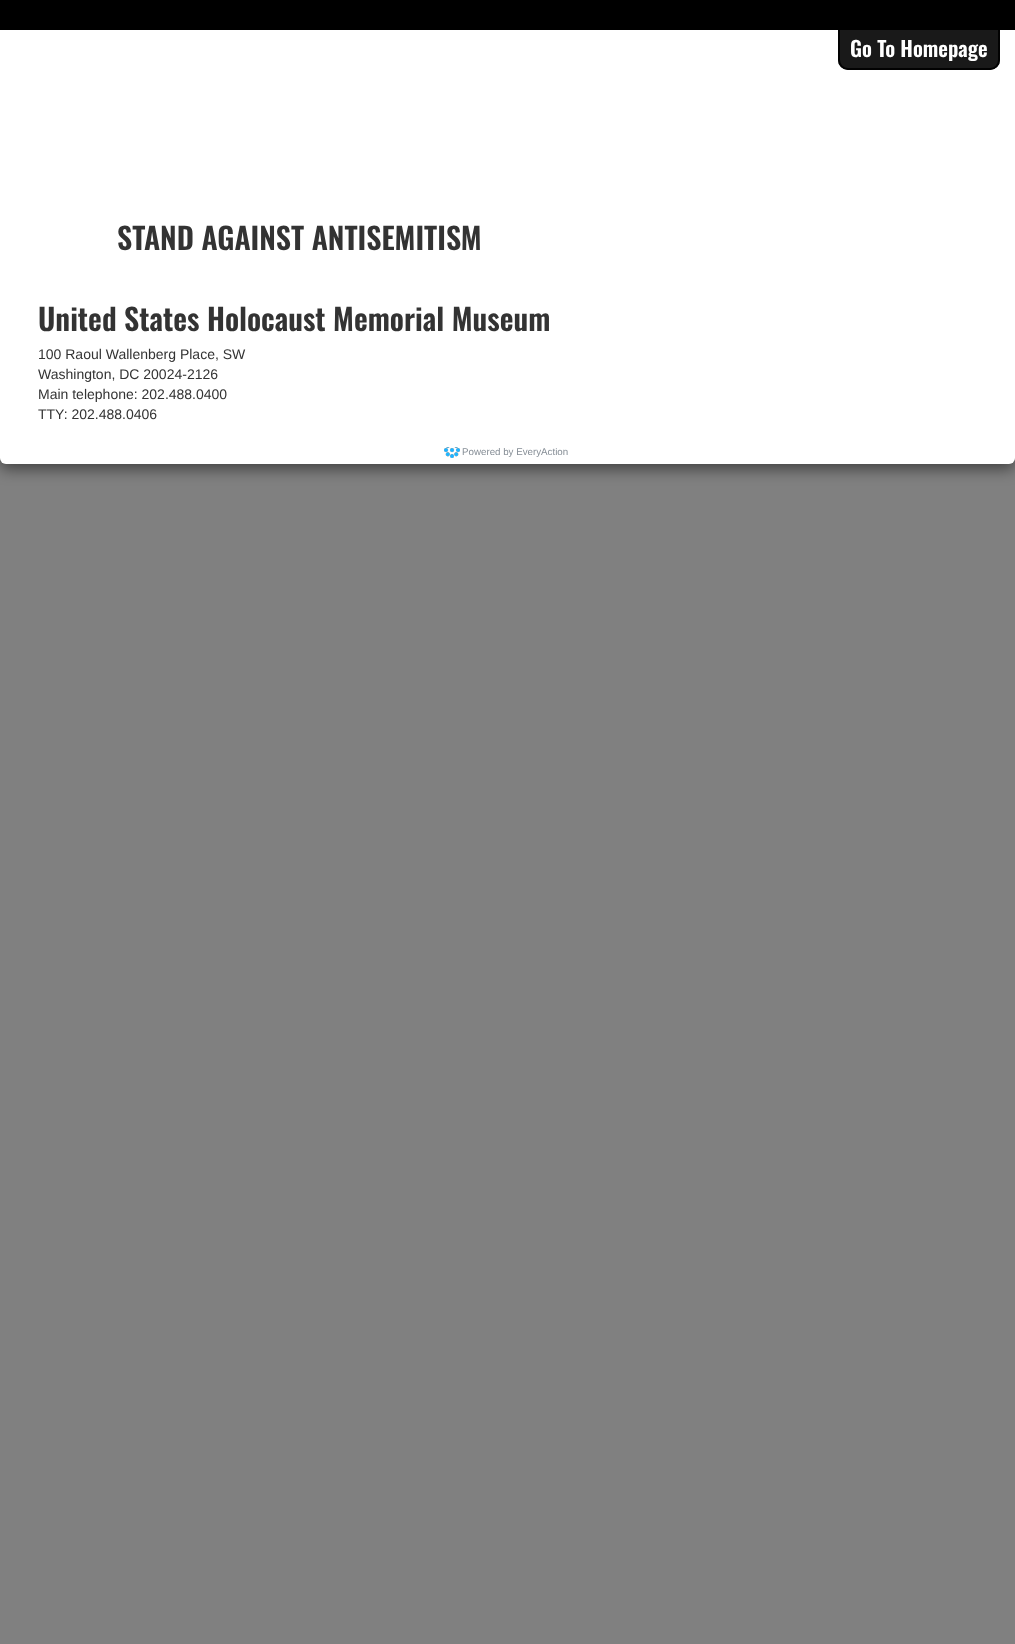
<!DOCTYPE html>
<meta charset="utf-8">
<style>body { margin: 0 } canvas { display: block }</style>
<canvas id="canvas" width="1015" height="1644"></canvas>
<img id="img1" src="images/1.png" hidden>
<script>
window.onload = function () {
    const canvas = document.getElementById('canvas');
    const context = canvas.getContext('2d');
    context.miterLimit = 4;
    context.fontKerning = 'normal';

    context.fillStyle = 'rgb(128, 128, 128)';
    context.fillRect(0, 0, 1015, 1644);
    context.fillStyle = 'rgba(0, 0, 0, 0.5)';
    context.filter = 'blur(7.5px)';
    context.beginPath();
    context.roundRect(0, 5, 1015, 464, 6);
    context.fill();
    context.filter = 'none';
    context.fillStyle = 'rgb(255, 255, 255)';
    context.beginPath();
    context.roundRect(0, 0, 1015, 464, 6);
    context.fill();
    context.fillStyle = 'rgb(0, 0, 0)';
    context.fillRect(0, 0, 1015, 30);
    context.fillStyle = 'rgba(0, 0, 0, 0.9)';
    context.beginPath();
    context.roundRect(838, 25, 162, 45, [0, 0, 10, 10]);
    context.fill();
    context.beginPath();
    context.roundRect(839, 26, 160, 43, [0, 0, 9, 9]);
    context.strokeStyle = 'rgba(0, 0, 0, 0.9)';
    context.lineWidth = 2;
    context.stroke();
    context.drawImage(document.getElementById('img1'), 444, 447, 16, 11);
    context.font = '600 21px Oswald';
    context.fillStyle = 'rgb(255, 255, 255)';
    context.fillText('Go To Homepage', 850, 57);
    context.font = '600 30px Oswald';
    context.fillStyle = 'rgb(51, 51, 51)';
    context.fillText('STAND AGAINST ANTISEMITISM', 117, 250);
    context.fillText('United States Holocaust Memorial Museum', 38, 331);
    context.font = '14px Liberation Sans';
    context.fillText('100 Raoul Wallenberg Place, SW', 38, 359);
    context.fillText('Washington, DC 20024-2126', 38, 379);
    context.fillText('Main telephone: 202.488.0400', 38, 399);
    context.fillText('TTY: 202.488.0406', 38, 419);
    context.font = '9.75px Liberation Sans';
    context.fillStyle = 'rgb(134, 142, 150)';
    context.fillText('Powered by EveryAction', 462, 455);
};
</script>
